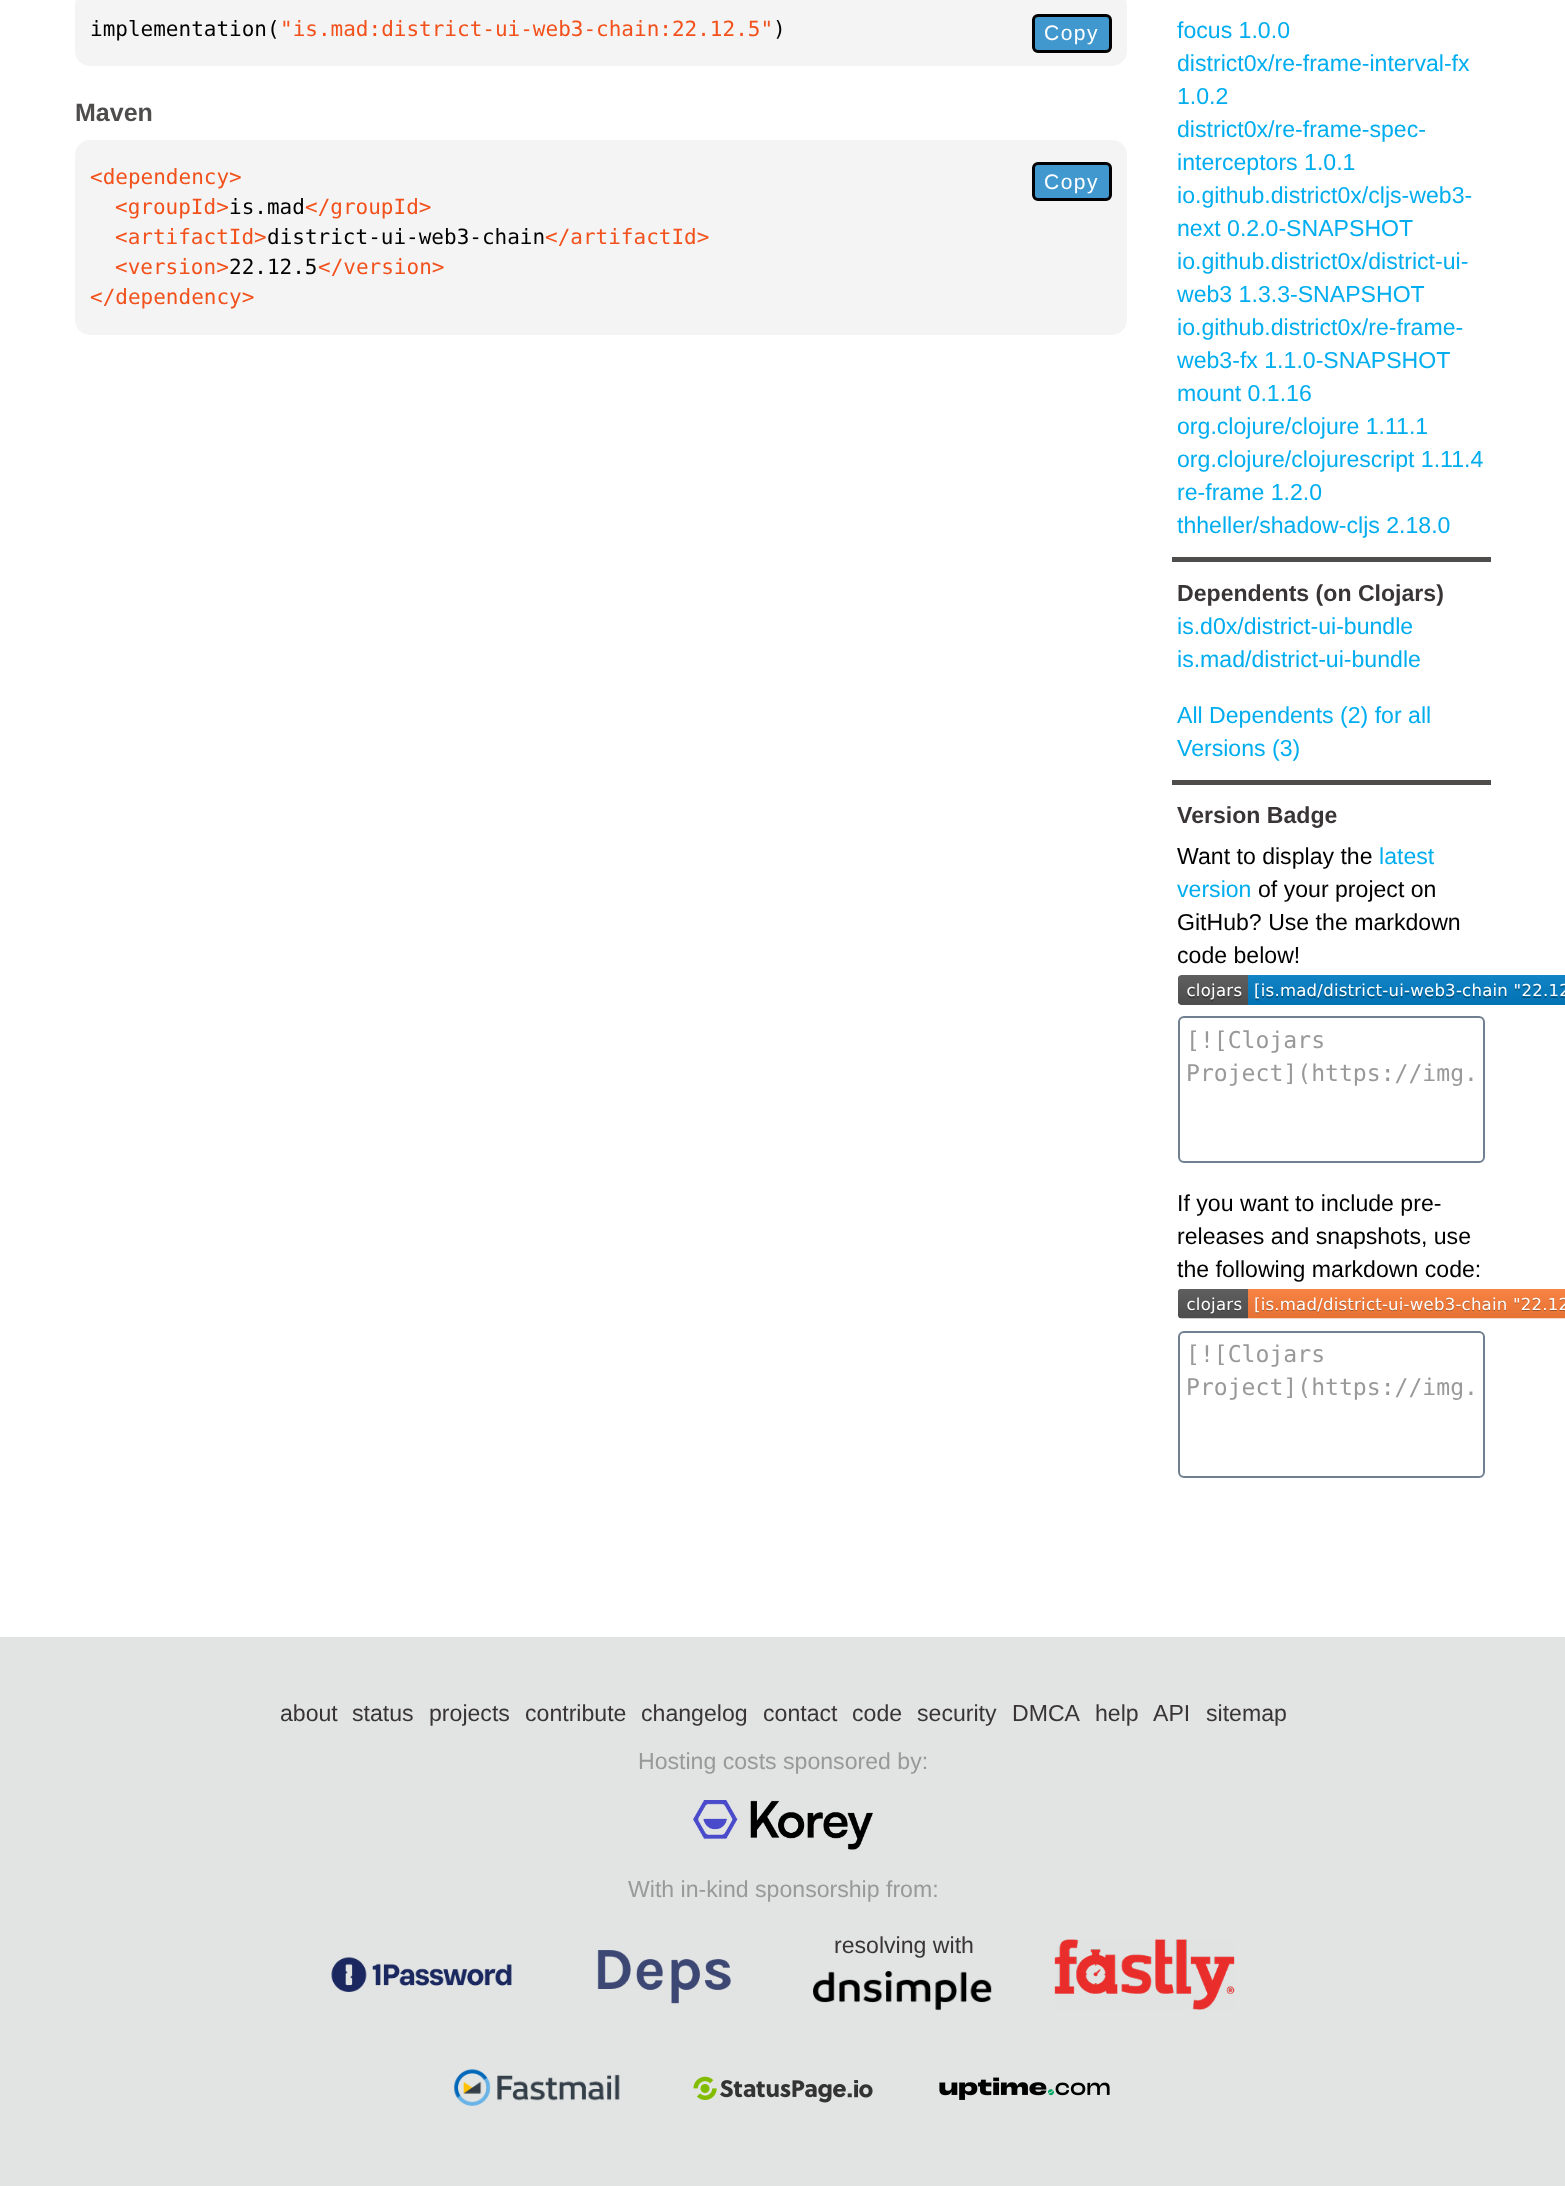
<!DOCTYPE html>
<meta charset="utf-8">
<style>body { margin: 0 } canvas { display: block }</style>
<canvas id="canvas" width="1565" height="2186"></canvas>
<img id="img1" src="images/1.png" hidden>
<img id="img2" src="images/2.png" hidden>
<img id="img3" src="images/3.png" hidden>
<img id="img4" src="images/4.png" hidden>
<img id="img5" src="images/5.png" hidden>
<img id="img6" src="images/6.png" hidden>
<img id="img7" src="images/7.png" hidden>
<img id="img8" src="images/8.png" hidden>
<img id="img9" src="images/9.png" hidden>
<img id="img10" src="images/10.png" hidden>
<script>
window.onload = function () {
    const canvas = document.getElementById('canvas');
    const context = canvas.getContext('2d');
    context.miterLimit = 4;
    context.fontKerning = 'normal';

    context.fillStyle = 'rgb(255, 255, 255)';
    context.fillRect(0, 0, 1565, 2186);
    context.fillStyle = 'rgb(244, 244, 244)';
    context.beginPath();
    context.roundRect(75, -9, 1052, 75, 15);
    context.fill();
    context.fillStyle = 'rgb(64, 152, 207)';
    context.beginPath();
    context.roundRect(1033.5, 15.5, 77, 36, 4.5);
    context.fill();
    context.strokeStyle = 'rgb(0, 0, 0)';
    context.lineWidth = 3;
    context.stroke();
    context.fillStyle = 'rgb(244, 244, 244)';
    context.beginPath();
    context.roundRect(75, 140, 1052, 195, 15);
    context.fill();
    context.fillStyle = 'rgb(64, 152, 207)';
    context.beginPath();
    context.roundRect(1033.5, 163.5, 77, 36, 4.5);
    context.fill();
    context.stroke();
    context.fillStyle = 'rgb(79, 76, 76)';
    context.fillRect(1172, 557, 319, 5);
    context.fillRect(1172, 780, 319, 5);
    context.drawImage(document.getElementById('img1'), 1178, 975, 387, 30);
    context.beginPath();
    context.roundRect(1179, 1017, 305, 145, 5);
    context.strokeStyle = 'rgb(112, 128, 144)';
    context.lineWidth = 2;
    context.stroke();
    context.drawImage(document.getElementById('img2'), 1178, 1289, 387, 30);
    context.beginPath();
    context.roundRect(1179, 1332, 305, 145, 5);
    context.stroke();
    context.fillStyle = 'rgb(226, 228, 227)';
    context.fillRect(0, 1637, 1565, 549);
    context.drawImage(document.getElementById('img3'), 693, 1800, 180, 50);
    context.drawImage(document.getElementById('img4'), 331, 1957, 181, 35);
    context.drawImage(document.getElementById('img5'), 597, 1950, 135, 54);
    context.drawImage(document.getElementById('img6'), 813, 1971, 179, 40);
    context.drawImage(document.getElementById('img7'), 1054, 1939, 181, 71);
    context.drawImage(document.getElementById('img8'), 453, 2069, 167, 37);
    context.drawImage(document.getElementById('img9'), 693, 2076, 180, 27);
    context.drawImage(document.getElementById('img10'), 939, 2077, 171, 23);
    context.font = '21px DejaVu Sans Mono';
    context.fillStyle = 'rgb(0, 0, 0)';
    context.fillText('implementation(', 90, 36);
    context.fillStyle = 'rgb(242, 81, 27)';
    context.fillText('"is.mad:district-ui-web3-chain:22.12.5"', 280, 36);
    context.fillStyle = 'rgb(0, 0, 0)';
    context.fillText(')', 773, 36);
    context.letterSpacing = '1.5px';
    context.font = '21px Liberation Sans';
    context.fillStyle = 'rgb(255, 255, 255)';
    context.fillText('Copy', 1044, 40);
    context.letterSpacing = '0px';
    context.font = 'bold 25px Liberation Sans';
    context.fillStyle = 'rgb(79, 76, 76)';
    context.fillText('Maven', 75, 121);
    context.font = '21px DejaVu Sans Mono';
    context.fillStyle = 'rgb(242, 81, 27)';
    context.fillText('<dependency>', 90, 184);
    context.fillText('<groupId>', 115, 214);
    context.fillStyle = 'rgb(0, 0, 0)';
    context.fillText('is.mad', 229, 214);
    context.fillStyle = 'rgb(242, 81, 27)';
    context.fillText('<\/groupId>', 305, 214);
    context.fillText('<artifactId>', 115, 244);
    context.fillStyle = 'rgb(0, 0, 0)';
    context.fillText('district-ui-web3-chain', 267, 244);
    context.fillStyle = 'rgb(242, 81, 27)';
    context.fillText('<\/artifactId>', 545, 244);
    context.fillText('<version>', 115, 274);
    context.fillStyle = 'rgb(0, 0, 0)';
    context.fillText('22.12.5', 229, 274);
    context.fillStyle = 'rgb(242, 81, 27)';
    context.fillText('<\/version>', 318, 274);
    context.fillText('<\/dependency>', 90, 304);
    context.letterSpacing = '1.5px';
    context.font = '21px Liberation Sans';
    context.fillStyle = 'rgb(255, 255, 255)';
    context.fillText('Copy', 1044, 189);
    context.letterSpacing = '0px';
    context.font = '23.1px Liberation Sans';
    context.fillStyle = 'rgb(0, 173, 239)';
    context.fillText('focus 1.0.0', 1177, 38);
    context.fillText('district0x/re-frame-interval-fx', 1177, 71);
    context.fillText('1.0.2', 1177, 104);
    context.fillText('district0x/re-frame-spec-', 1177, 137);
    context.fillText('interceptors 1.0.1', 1177, 170);
    context.fillText('io.github.district0x/cljs-web3-', 1177, 203);
    context.fillText('next 0.2.0-SNAPSHOT', 1177, 236);
    context.fillText('io.github.district0x/district-ui-', 1177, 269);
    context.fillText('web3 1.3.3-SNAPSHOT', 1177, 302);
    context.fillText('io.github.district0x/re-frame-', 1177, 335);
    context.fillText('web3-fx 1.1.0-SNAPSHOT', 1177, 368);
    context.fillText('mount 0.1.16', 1177, 401);
    context.fillText('org.clojure/clojure 1.11.1', 1177, 434);
    context.fillText('org.clojure/clojurescript 1.11.4', 1177, 467);
    context.fillText('re-frame 1.2.0', 1177, 500);
    context.fillText('thheller/shadow-cljs 2.18.0', 1177, 533);
    context.font = 'bold 23.1px Liberation Sans';
    context.fillStyle = 'rgb(57, 53, 54)';
    context.fillText('Dependents (on Clojars)', 1177, 601);
    context.font = '23.1px Liberation Sans';
    context.fillStyle = 'rgb(0, 173, 239)';
    context.fillText('is.d0x/district-ui-bundle', 1177, 634);
    context.fillText('is.mad/district-ui-bundle', 1177, 667);
    context.fillText('All Dependents (2) for all', 1177, 723);
    context.fillText('Versions (3)', 1177, 756);
    context.font = 'bold 23.1px Liberation Sans';
    context.fillStyle = 'rgb(57, 53, 54)';
    context.fillText('Version Badge', 1177, 823);
    context.font = '23.1px Liberation Sans';
    context.fillStyle = 'rgb(0, 0, 0)';
    context.fillText('Want to display the', 1177, 864);
    context.fillStyle = 'rgb(0, 173, 239)';
    context.fillText('latest', 1379, 864);
    context.fillText('version', 1177, 897);
    context.fillStyle = 'rgb(0, 0, 0)';
    context.fillText('of your project on', 1258, 897);
    context.fillText('GitHub? Use the markdown', 1177, 930);
    context.fillText('code below!', 1177, 963);
    context.font = '23.1px DejaVu Sans Mono';
    context.fillStyle = 'rgb(153, 153, 153)';
    context.fillText('[![Clojars', 1186, 1048);
    context.fillText('Project](https://img.', 1186, 1081);
    context.font = '23.1px Liberation Sans';
    context.fillStyle = 'rgb(0, 0, 0)';
    context.fillText('If you want to include pre-', 1177, 1211);
    context.fillText('releases and snapshots, use', 1177, 1244);
    context.fillText('the following markdown code:', 1177, 1277);
    context.font = '23.1px DejaVu Sans Mono';
    context.fillStyle = 'rgb(153, 153, 153)';
    context.fillText('[![Clojars', 1186, 1362);
    context.fillText('Project](https://img.', 1186, 1395);
    context.font = '23.1px Liberation Sans';
    context.fillStyle = 'rgb(57, 53, 54)';
    context.fillText('about', 280, 1721);
    context.fillText('status', 352, 1721);
    context.fillText('projects', 429, 1721);
    context.fillText('contribute', 525, 1721);
    context.fillText('changelog', 641, 1721);
    context.fillText('contact', 763, 1721);
    context.fillText('code', 852, 1721);
    context.fillText('security', 917, 1721);
    context.fillText('DMCA', 1012, 1721);
    context.fillText('help', 1095, 1721);
    context.fillText('API', 1153, 1721);
    context.fillText('sitemap', 1206, 1721);
    context.fillStyle = 'rgb(153, 153, 153)';
    context.fillText('Hosting costs sponsored by:', 638, 1769);
    context.fillText('With in-kind sponsorship from:', 628, 1897);
    context.fillStyle = 'rgb(57, 53, 54)';
    context.fillText('resolving with', 834, 1953);
};
</script>
